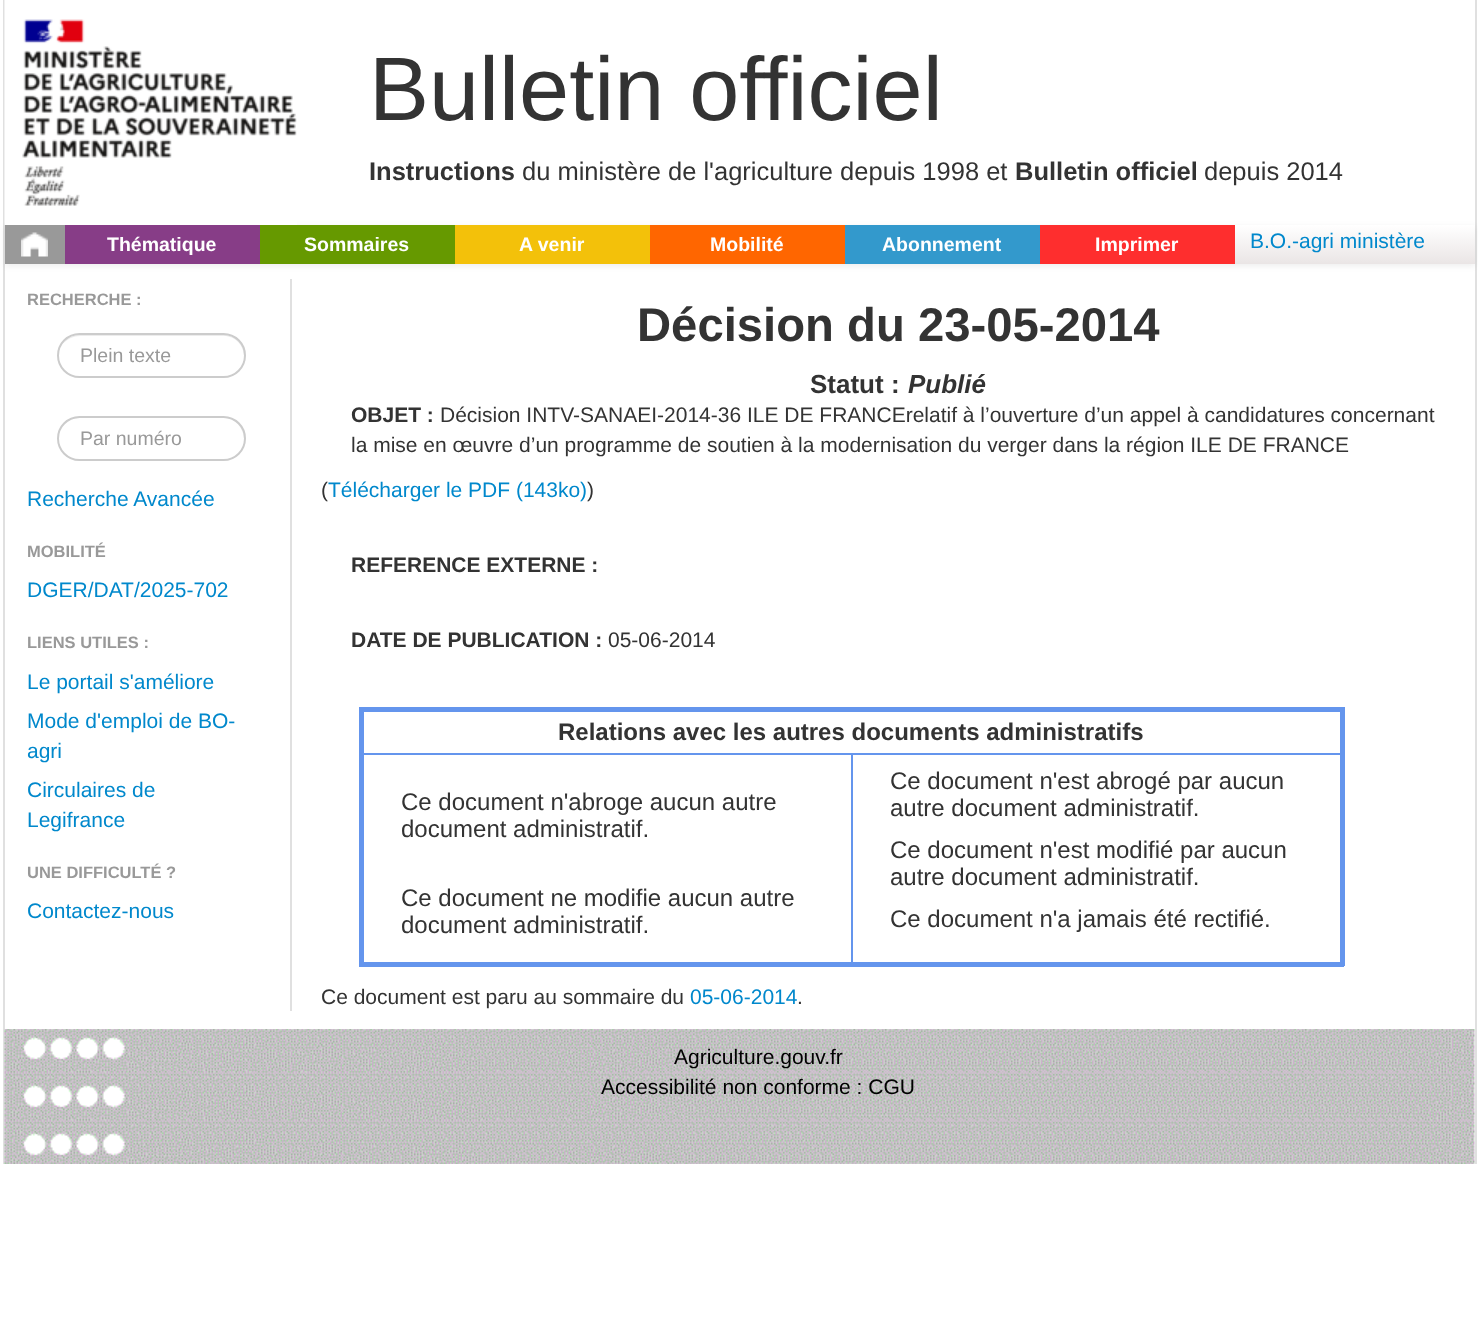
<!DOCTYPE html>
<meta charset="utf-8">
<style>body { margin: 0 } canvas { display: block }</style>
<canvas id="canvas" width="1478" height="1330"></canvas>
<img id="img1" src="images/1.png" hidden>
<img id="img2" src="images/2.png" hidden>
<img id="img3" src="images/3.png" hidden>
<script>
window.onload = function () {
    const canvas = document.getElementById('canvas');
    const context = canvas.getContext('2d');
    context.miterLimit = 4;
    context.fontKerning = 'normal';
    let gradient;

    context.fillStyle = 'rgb(255, 255, 255)';
    context.fillRect(0, 0, 1478, 1330);
    context.fillStyle = 'rgb(224, 224, 224)';
    context.fillRect(1475, 0, 2, 1164);
    context.fillRect(3, 0, 2, 1164);
    context.fillStyle = 'rgba(0, 0, 0, 0.07)';
    context.filter = 'blur(3px)';
    context.beginPath();
    context.rect(5, 227, 1470, 39);
    context.fill();
    context.filter = 'none';
    context.drawImage(document.getElementById('img1'), 4, 0, 293, 225);
    gradient = context.createLinearGradient(740, 225, 740, 264);
    gradient.addColorStop(0, 'rgb(255, 255, 255)');
    gradient.addColorStop(1, 'rgb(234, 229, 229)');
    context.fillStyle = gradient;
    context.fillRect(1235, 225, 240, 39);
    context.fillStyle = 'rgb(153, 153, 153)';
    context.fillRect(5, 225, 60, 39);
    context.drawImage(document.getElementById('img2'), 21, 232, 27, 25);
    context.fillStyle = 'rgb(135, 61, 135)';
    context.fillRect(65, 225, 195, 39);
    context.fillStyle = 'rgb(102, 153, 0)';
    context.fillRect(260, 225, 195, 39);
    context.fillStyle = 'rgb(243, 193, 10)';
    context.fillRect(455, 225, 195, 39);
    context.fillStyle = 'rgb(255, 102, 0)';
    context.fillRect(650, 225, 195, 39);
    context.fillStyle = 'rgb(51, 153, 204)';
    context.fillRect(845, 225, 195, 39);
    context.fillStyle = 'rgb(254, 46, 46)';
    context.fillRect(1040, 225, 195, 39);
    context.fillStyle = 'rgb(236, 236, 236)';
    context.beginPath();
    context.moveTo(80, 336);
    context.lineTo(224, 336);
    context.bezierCurveTo(235, 336, 244, 345, 244, 357);
    context.bezierCurveTo(244, 361, 243, 365, 241, 369);
    context.bezierCurveTo(243, 365, 245, 361, 245, 356);
    context.bezierCurveTo(245, 344, 236, 335, 224, 335);
    context.lineTo(80, 335);
    context.bezierCurveTo(73, 335, 67, 338, 64, 343);
    context.bezierCurveTo(68, 339, 73, 336, 80, 336);
    context.closePath();
    context.fill();
    context.beginPath();
    context.roundRect(58, 334, 187, 43, 21.5);
    context.strokeStyle = 'rgb(204, 204, 204)';
    context.lineWidth = 2;
    context.stroke();
    context.beginPath();
    context.moveTo(80, 418);
    context.lineTo(224, 418);
    context.bezierCurveTo(235, 418, 244, 428, 244, 440);
    context.bezierCurveTo(244, 443, 243, 447, 242, 449);
    context.bezierCurveTo(244, 446, 245, 442, 245, 438);
    context.bezierCurveTo(245, 426, 236, 417, 224, 417);
    context.lineTo(80, 417);
    context.bezierCurveTo(72, 417, 64, 422, 61, 429);
    context.bezierCurveTo(65, 422, 72, 418, 80, 418);
    context.closePath();
    context.fill();
    context.beginPath();
    context.roundRect(58, 417, 187, 43, 21.5);
    context.stroke();
    context.fillStyle = 'rgb(224, 224, 224)';
    context.fillRect(290, 279, 2, 732);
    context.fillStyle = 'rgb(100, 149, 237)';
    context.fillRect(359, 707, 985, 5);
    context.fillRect(851, 753, 492, 2);
    context.fillRect(1340, 707, 5, 259);
    context.fillRect(851, 753, 2, 212);
    context.fillRect(359, 962, 985, 5);
    context.fillRect(360, 753, 492, 2);
    context.fillRect(359, 707, 5, 259);
    context.drawImage(document.getElementById('img3'), 4, 1029, 1471, 135);
    context.font = '90px Liberation Sans';
    context.fillStyle = 'rgb(51, 51, 51)';
    context.fillText('Bulletin officiel', 369, 120);
    context.font = 'bold 25.5px Liberation Sans';
    context.fillText('Instructions', 369, 180);
    context.font = '25.5px Liberation Sans';
    context.fillText('du ministère de l\'agriculture depuis 1998 et', 522, 180);
    context.font = 'bold 25.5px Liberation Sans';
    context.fillText('Bulletin officiel', 1015, 180);
    context.font = '25.5px Liberation Sans';
    context.fillText('depuis 2014', 1204, 180);
    context.font = 'bold 19.5px Liberation Sans';
    context.fillStyle = 'rgb(255, 255, 255)';
    context.fillText('Thématique', 107, 251);
    context.fillText('Sommaires', 304, 251);
    context.fillText('A venir', 519, 251);
    context.fillText('Mobilité', 710, 251);
    context.fillText('Abonnement', 882, 251);
    context.fillText('Imprimer', 1095, 251);
    context.font = '21px Liberation Sans';
    context.fillStyle = 'rgb(0, 136, 204)';
    context.fillText('B.O.-agri ministère', 1250, 248);
    context.font = 'bold 16.5px Liberation Sans';
    context.fillStyle = 'rgb(153, 153, 153)';
    context.fillText('RECHERCHE :', 27, 305);
    context.font = '19.5px Liberation Sans';
    context.fillText('Plein texte', 80, 362);
    context.fillText('Par numéro', 80, 445);
    context.font = '21px Liberation Sans';
    context.fillStyle = 'rgb(0, 136, 204)';
    context.fillText('Recherche Avancée', 27, 506);
    context.font = 'bold 16.5px Liberation Sans';
    context.fillStyle = 'rgb(153, 153, 153)';
    context.fillText('MOBILITÉ', 27, 557);
    context.font = '21px Liberation Sans';
    context.fillStyle = 'rgb(0, 136, 204)';
    context.fillText('DGER/DAT/2025-702', 27, 597);
    context.font = 'bold 16.5px Liberation Sans';
    context.fillStyle = 'rgb(153, 153, 153)';
    context.fillText('LIENS UTILES :', 27, 648);
    context.font = '21px Liberation Sans';
    context.fillStyle = 'rgb(0, 136, 204)';
    context.fillText('Le portail s\'améliore', 27, 689);
    context.fillText('Mode d\'emploi de BO-', 27, 728);
    context.fillText('agri', 27, 758);
    context.fillText('Circulaires de', 27, 797);
    context.fillText('Legifrance', 27, 827);
    context.font = 'bold 16.5px Liberation Sans';
    context.fillStyle = 'rgb(153, 153, 153)';
    context.fillText('UNE DIFFICULTÉ ?', 27, 878);
    context.font = '21px Liberation Sans';
    context.fillStyle = 'rgb(0, 136, 204)';
    context.fillText('Contactez-nous', 27, 918);
    context.font = 'bold 47.25px Liberation Sans';
    context.fillStyle = 'rgb(51, 51, 51)';
    context.fillText('Décision du 23-05-2014', 637, 341);
    context.font = 'bold 26px Liberation Sans';
    context.fillText('Statut :', 810, 393);
    context.font = 'italic bold 26px Liberation Sans';
    context.fillText('Publié', 908, 393);
    context.font = 'bold 21px Liberation Sans';
    context.fillText('OBJET :', 351, 422);
    context.font = '21px Liberation Sans';
    context.fillText('Décision INTV-SANAEI-2014-36 ILE DE FRANCErelatif à l’ouverture d’un appel à candidatures concernant', 440, 422);
    context.fillText('la mise en œuvre d’un programme de soutien à la modernisation du verger dans la région ILE DE FRANCE', 351, 452);
    context.fillText('(', 321, 497);
    context.fillStyle = 'rgb(0, 136, 204)';
    context.fillText('Télécharger le PDF (143ko)', 328, 497);
    context.fillStyle = 'rgb(51, 51, 51)';
    context.fillText(')', 587, 497);
    context.font = 'bold 21px Liberation Sans';
    context.fillText('REFERENCE EXTERNE :', 351, 572);
    context.fillText('DATE DE PUBLICATION :', 351, 647);
    context.font = '21px Liberation Sans';
    context.fillText('05-06-2014', 608, 647);
    context.font = 'bold 24px Liberation Sans';
    context.fillText('Relations avec les autres documents administratifs', 558, 740);
    context.font = '24px Liberation Sans';
    context.fillText('Ce document n\'abroge aucun autre', 401, 810);
    context.fillText('document administratif.', 401, 837);
    context.fillText('Ce document ne modifie aucun autre', 401, 906);
    context.fillText('document administratif.', 401, 933);
    context.fillText('Ce document n\'est abrogé par aucun', 890, 789);
    context.fillText('autre document administratif.', 890, 816);
    context.fillText('Ce document n\'est modifié par aucun', 890, 858);
    context.fillText('autre document administratif.', 890, 885);
    context.fillText('Ce document n\'a jamais été rectifié.', 890, 927);
    context.font = '21px Liberation Sans';
    context.fillText('Ce document est paru au sommaire du', 321, 1004);
    context.fillStyle = 'rgb(0, 136, 204)';
    context.fillText('05-06-2014', 690, 1004);
    context.fillStyle = 'rgb(51, 51, 51)';
    context.fillText('.', 797, 1004);
    context.fillStyle = 'rgb(0, 0, 0)';
    context.fillText('Agriculture.gouv.fr', 674, 1064);
    context.fillText('Accessibilité non conforme : CGU', 601, 1094);
};
</script>
